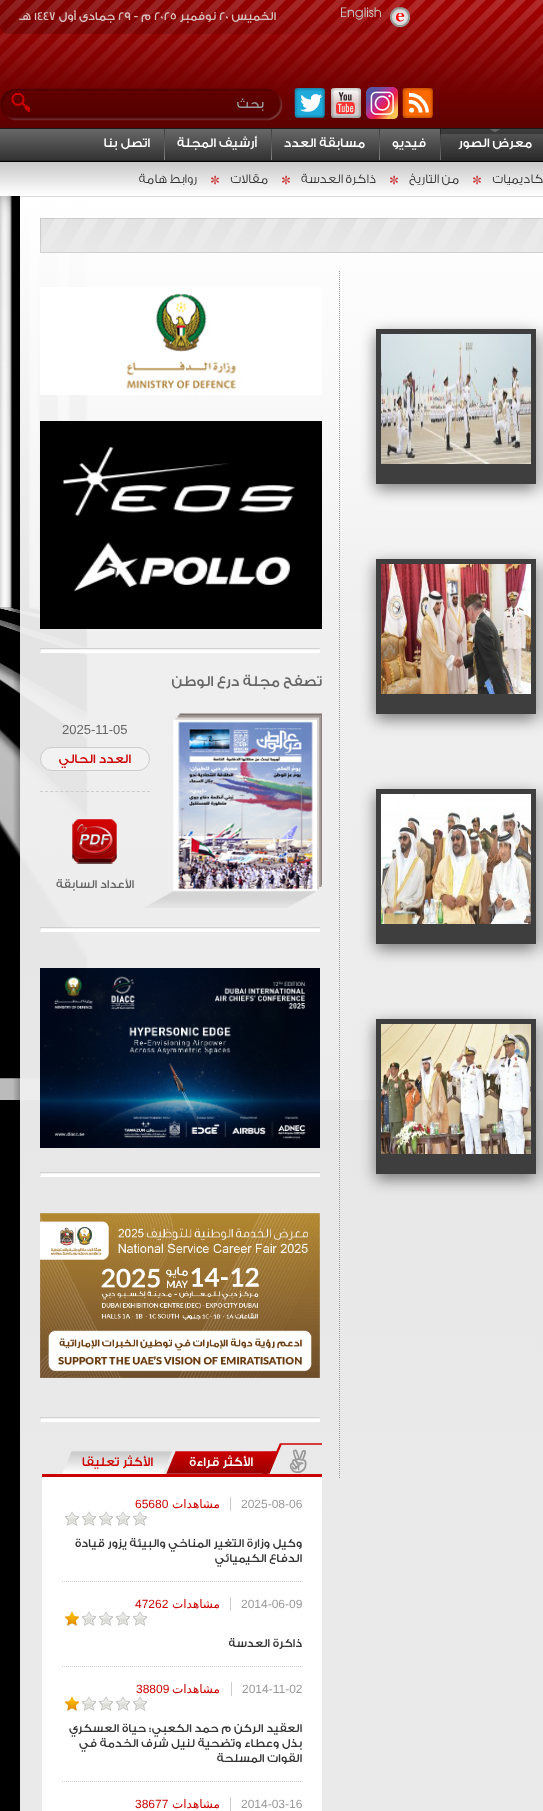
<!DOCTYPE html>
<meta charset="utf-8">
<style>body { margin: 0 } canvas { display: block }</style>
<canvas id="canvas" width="543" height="1811"></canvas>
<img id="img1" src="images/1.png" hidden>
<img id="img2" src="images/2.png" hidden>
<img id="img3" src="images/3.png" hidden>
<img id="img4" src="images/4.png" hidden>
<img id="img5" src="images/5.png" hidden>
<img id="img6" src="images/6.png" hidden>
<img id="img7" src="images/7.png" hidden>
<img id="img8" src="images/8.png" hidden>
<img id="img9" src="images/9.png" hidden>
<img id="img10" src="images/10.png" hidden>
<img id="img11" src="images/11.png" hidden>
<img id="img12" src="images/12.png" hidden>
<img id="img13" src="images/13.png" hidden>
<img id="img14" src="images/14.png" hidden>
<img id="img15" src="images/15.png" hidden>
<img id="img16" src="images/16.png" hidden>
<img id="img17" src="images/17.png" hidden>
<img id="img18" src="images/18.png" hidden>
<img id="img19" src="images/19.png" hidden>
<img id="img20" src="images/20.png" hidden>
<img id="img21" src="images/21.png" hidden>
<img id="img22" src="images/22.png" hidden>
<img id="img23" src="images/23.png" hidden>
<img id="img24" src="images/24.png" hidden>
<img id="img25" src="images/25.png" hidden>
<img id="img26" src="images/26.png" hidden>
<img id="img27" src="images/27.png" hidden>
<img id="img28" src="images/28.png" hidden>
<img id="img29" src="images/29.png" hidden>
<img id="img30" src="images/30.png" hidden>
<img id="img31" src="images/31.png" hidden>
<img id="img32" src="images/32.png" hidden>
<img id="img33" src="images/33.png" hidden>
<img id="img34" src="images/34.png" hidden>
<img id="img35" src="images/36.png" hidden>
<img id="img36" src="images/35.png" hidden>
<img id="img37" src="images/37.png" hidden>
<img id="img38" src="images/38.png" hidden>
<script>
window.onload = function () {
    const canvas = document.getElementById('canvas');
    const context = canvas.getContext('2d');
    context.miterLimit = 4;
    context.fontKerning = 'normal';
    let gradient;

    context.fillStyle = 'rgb(0, 0, 0)';
    context.fillRect(0, 0, 543, 1811);
    context.drawImage(document.getElementById('img1'), 0, 196, 543, 904);
    context.fillStyle = 'rgba(0, 0, 0, 0.5)';
    context.filter = 'blur(10px)';
    context.beginPath();
    context.rect(0, 0, 543, 196);
    context.fill();
    context.filter = 'none';
    context.drawImage(document.getElementById('img2'), 0, 0, 543, 128);
    context.drawImage(document.getElementById('img3'), 0, 0, 389, 34);
    context.drawImage(document.getElementById('img4'), 390, 7, 20, 20);
    context.drawImage(document.getElementById('img5'), 402, 88, 32, 30);
    context.drawImage(document.getElementById('img6'), 366, 87, 32, 32);
    context.drawImage(document.getElementById('img7'), 330, 88, 32, 30);
    context.drawImage(document.getElementById('img8'), 294, 88, 31, 30);
    context.drawImage(document.getElementById('img9'), 0, 88, 283, 33);
    context.drawImage(document.getElementById('img10'), 11, 93, 19, 19);
    context.drawImage(document.getElementById('img11'), 0, 128, 543, 34);
    context.drawImage(document.getElementById('img12'), 440, 129, 1, 31);
    context.drawImage(document.getElementById('img13'), 440, 129, 103, 31);
    context.drawImage(document.getElementById('img12'), 379, 129, 1, 31);
    context.drawImage(document.getElementById('img12'), 271, 129, 1, 31);
    context.drawImage(document.getElementById('img12'), 164, 129, 1, 31);
    context.drawImage(document.getElementById('img14'), 0, 162, 543, 34);
    context.drawImage(document.getElementById('img15'), 473, 175, 8, 10);
    context.drawImage(document.getElementById('img15'), 390, 175, 8, 10);
    context.drawImage(document.getElementById('img15'), 282, 175, 8, 10);
    context.drawImage(document.getElementById('img15'), 211, 175, 8, 10);
    context.drawImage(document.getElementById('img16'), 13, 609, 7, 491);
    gradient = context.createLinearGradient(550, 197, 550, 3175);
    gradient.addColorStop(0, 'rgb(255, 255, 255)');
    gradient.addColorStop(0.15, 'rgba(242, 242, 242, 0.94)');
    gradient.addColorStop(0.45, 'rgb(234, 234, 234)');
    gradient.addColorStop(1, 'rgb(234, 234, 234)');
    context.fillStyle = gradient;
    context.fillRect(20, 197, 523, 1614);
    context.fillStyle = 'rgb(219, 219, 219)';
    context.fillRect(20, 196, 523, 1);
    context.drawImage(document.getElementById('img17'), 40, 218, 503, 35);
    context.beginPath();
    context.moveTo(339.5, 271);
    context.lineTo(339.5, 1479);
    context.strokeStyle = 'rgb(153, 153, 153)';
    context.setLineDash([1, 1]);
    context.stroke();
    context.fillStyle = 'rgba(0, 0, 0, 0.5)';
    context.filter = 'blur(7.5px)';
    context.beginPath();
    context.rect(376, 334, 160, 155);
    context.fill();
    context.filter = 'none';
    context.filter = 'blur(7.5px)';
    context.beginPath();
    context.rect(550, 334, 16, 155);
    context.fill();
    context.filter = 'none';
    context.fillStyle = 'rgb(62, 62, 62)';
    context.fillRect(376, 329, 160, 5);
    context.fillRect(531, 329, 5, 135);
    context.drawImage(document.getElementById('img18'), 381, 334, 150, 130);
    context.fillRect(376, 329, 5, 155);
    context.fillRect(381, 464, 155, 20);
    context.fillStyle = 'rgba(0, 0, 0, 0.5)';
    context.filter = 'blur(7.5px)';
    context.beginPath();
    context.rect(376, 564, 160, 155);
    context.fill();
    context.filter = 'none';
    context.filter = 'blur(7.5px)';
    context.beginPath();
    context.rect(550, 564, 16, 155);
    context.fill();
    context.filter = 'none';
    context.fillStyle = 'rgb(62, 62, 62)';
    context.fillRect(376, 559, 160, 5);
    context.fillRect(531, 559, 5, 135);
    context.drawImage(document.getElementById('img19'), 381, 564, 150, 130);
    context.fillRect(376, 559, 5, 155);
    context.fillRect(381, 694, 155, 20);
    context.fillStyle = 'rgba(0, 0, 0, 0.5)';
    context.filter = 'blur(7.5px)';
    context.beginPath();
    context.rect(376, 794, 160, 155);
    context.fill();
    context.filter = 'none';
    context.filter = 'blur(7.5px)';
    context.beginPath();
    context.rect(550, 794, 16, 155);
    context.fill();
    context.filter = 'none';
    context.fillStyle = 'rgb(62, 62, 62)';
    context.fillRect(376, 789, 160, 5);
    context.fillRect(531, 789, 5, 135);
    context.drawImage(document.getElementById('img20'), 381, 794, 150, 130);
    context.fillRect(376, 789, 5, 155);
    context.fillRect(381, 924, 155, 20);
    context.fillStyle = 'rgba(0, 0, 0, 0.5)';
    context.filter = 'blur(7.5px)';
    context.beginPath();
    context.rect(376, 1024, 160, 155);
    context.fill();
    context.filter = 'none';
    context.filter = 'blur(7.5px)';
    context.beginPath();
    context.rect(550, 1024, 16, 155);
    context.fill();
    context.filter = 'none';
    context.fillStyle = 'rgb(62, 62, 62)';
    context.fillRect(376, 1019, 160, 5);
    context.fillRect(531, 1019, 5, 135);
    context.drawImage(document.getElementById('img21'), 381, 1024, 150, 130);
    context.fillRect(376, 1019, 5, 155);
    context.fillRect(381, 1154, 155, 20);
    context.drawImage(document.getElementById('img22'), 40, 287, 282, 108);
    context.drawImage(document.getElementById('img23'), 40, 421, 282, 208);
    context.drawImage(document.getElementById('img24'), 40, 648, 280, 5);
    context.drawImage(document.getElementById('img25'), 145, 713, 177, 195);
    context.drawImage(document.getElementById('img26'), 178, 721, 135, 169);
    context.fillStyle = 'rgb(242, 242, 242)';
    context.beginPath();
    context.roundRect(40.5, 747.5, 109, 23, 11.5);
    context.fill();
    context.strokeStyle = 'rgb(204, 204, 204)';
    context.setLineDash([]);
    context.stroke();
    context.beginPath();
    context.moveTo(40, 791.5);
    context.lineTo(150, 791.5);
    context.setLineDash([3, 2.1]);
    context.stroke();
    context.drawImage(document.getElementById('img27'), 72, 819, 45, 45);
    context.drawImage(document.getElementById('img28'), 40, 927, 280, 5);
    context.drawImage(document.getElementById('img29'), 40, 968, 280, 180);
    context.drawImage(document.getElementById('img30'), 40, 1172, 280, 5);
    context.drawImage(document.getElementById('img31'), 40, 1213, 280, 165);
    context.drawImage(document.getElementById('img32'), 40, 1417, 280, 5);
    context.drawImage(document.getElementById('img33'), 262, 1443, 60, 31);
    context.drawImage(document.getElementById('img34'), 289, 1449, 18, 24);
    context.drawImage(document.getElementById('img35'), 62, 1451, 110, 23);
    context.drawImage(document.getElementById('img36'), 166, 1451, 110, 23);
    context.fillStyle = 'rgb(204, 0, 0)';
    context.fillRect(42, 1474, 280, 3);
    context.fillStyle = 'rgb(255, 255, 255)';
    context.fillRect(42, 1477, 280, 334);
    context.beginPath();
    context.moveTo(62, 1581.5);
    context.lineTo(302, 1581.5);
    context.setLineDash([1, 1]);
    context.stroke();
    context.fillStyle = 'rgb(204, 204, 204)';
    context.fillRect(230, 1497, 1, 14);
    context.drawImage(document.getElementById('img37'), 132, 1511, 15, 15);
    context.drawImage(document.getElementById('img37'), 115, 1511, 15, 15);
    context.drawImage(document.getElementById('img37'), 98, 1511, 15, 15);
    context.drawImage(document.getElementById('img37'), 81, 1511, 15, 15);
    context.drawImage(document.getElementById('img37'), 64, 1511, 15, 15);
    context.beginPath();
    context.moveTo(62, 1666.5);
    context.lineTo(302, 1666.5);
    context.stroke();
    context.fillRect(230, 1597, 1, 14);
    context.drawImage(document.getElementById('img37'), 132, 1611, 15, 15);
    context.drawImage(document.getElementById('img37'), 115, 1611, 15, 15);
    context.drawImage(document.getElementById('img37'), 98, 1611, 15, 15);
    context.drawImage(document.getElementById('img37'), 81, 1611, 15, 15);
    context.drawImage(document.getElementById('img38'), 64, 1611, 15, 15);
    context.beginPath();
    context.moveTo(62, 1781.5);
    context.lineTo(302, 1781.5);
    context.stroke();
    context.fillRect(231, 1682, 1, 14);
    context.drawImage(document.getElementById('img37'), 132, 1696, 15, 15);
    context.drawImage(document.getElementById('img37'), 115, 1696, 15, 15);
    context.drawImage(document.getElementById('img37'), 98, 1696, 15, 15);
    context.drawImage(document.getElementById('img37'), 81, 1696, 15, 15);
    context.drawImage(document.getElementById('img38'), 64, 1696, 15, 15);
    context.fillRect(230, 1797, 1, 14);
    context.font = '13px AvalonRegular';
    context.fillText('English', 340, 17);
    context.direction = 'rtl';
    context.font = '500 12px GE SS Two';
    context.fillStyle = 'rgb(218, 191, 191)';
    context.fillText('الخميس', 276, 20);
    context.direction = 'ltr';
    context.fillText('20', 219, 20);
    context.direction = 'rtl';
    context.fillText('نوفمبر', 216, 20);
    context.direction = 'ltr';
    context.fillText('2025', 154, 20);
    context.direction = 'rtl';
    context.fillText('م -', 151, 20);
    context.direction = 'ltr';
    context.fillText('29', 118, 20);
    context.direction = 'rtl';
    context.fillText('جمادى أول', 115, 20);
    context.direction = 'ltr';
    context.fillText('1447', 34, 20);
    context.direction = 'rtl';
    context.fillText('هـ', 31, 20);
    context.font = '500 13px GE SS Two';
    context.fillStyle = 'rgb(153, 153, 153)';
    context.fillText('بحث', 264, 108);
    context.fillStyle = 'rgb(255, 255, 255)';
    context.fillText('معرض الصور', 532, 147);
    context.fillText('فيديو', 426, 147);
    context.fillText('مسابقة العدد', 365, 147);
    context.fillText('أرشيف المجلة', 257, 147);
    context.fillText('اتصل بنا', 150, 147);
    context.font = '300 13px GE SS Two';
    context.fillStyle = 'rgb(51, 51, 51)';
    context.fillText('أكاديميات', 546, 183);
    context.fillText('من التاريخ', 459, 183);
    context.fillText('ذاكرة العدسة', 376, 183);
    context.fillText('مقالات', 268, 183);
    context.fillText('روابط هامة', 197, 183);
    context.font = '500 15px GE SS Two';
    context.fillStyle = 'rgb(102, 102, 102)';
    context.fillText('تصفح مجلة درع الوطن', 322, 686);
    context.direction = 'ltr';
    context.font = '13px Liberation Sans';
    context.fillText('2025-11-05', 62, 734);
    context.direction = 'rtl';
    context.font = '500 13px GE SS Two';
    context.fillStyle = 'rgb(204, 0, 0)';
    context.fillText('العدد الحالي', 131, 763);
    context.font = '500 12px GE SS Two';
    context.fillStyle = 'rgb(102, 102, 102)';
    context.fillText('الأعداد السابقة', 134, 888);
    context.font = '500 13px GE SS Two';
    context.fillStyle = 'rgb(255, 255, 255)';
    context.fillText('الأكثر قراءة', 253, 1466);
    context.fillStyle = 'rgb(204, 0, 0)';
    context.fillText('الأكثر تعليقا', 153, 1466);
    context.direction = 'ltr';
    context.font = '12px Liberation Sans';
    context.fillStyle = 'rgb(153, 153, 153)';
    context.fillText('2025-08-06', 241, 1508);
    context.direction = 'rtl';
    context.font = '12px DejaVu Sans';
    context.fillStyle = 'rgb(204, 0, 0)';
    context.fillText('مشاهدات', 220, 1508);
    context.direction = 'ltr';
    context.font = '12px Liberation Sans';
    context.fillText('65680', 135, 1508);
    context.direction = 'rtl';
    context.font = '500 12px GE SS Two';
    context.fillStyle = 'rgb(51, 51, 51)';
    context.fillText('وكيل وزارة التغير المناخي والبيئة يزور قيادة', 302, 1547);
    context.fillText('الدفاع الكيميائي', 302, 1562);
    context.direction = 'ltr';
    context.font = '12px Liberation Sans';
    context.fillStyle = 'rgb(153, 153, 153)';
    context.fillText('2014-06-09', 241, 1608);
    context.direction = 'rtl';
    context.font = '12px DejaVu Sans';
    context.fillStyle = 'rgb(204, 0, 0)';
    context.fillText('مشاهدات', 220, 1608);
    context.direction = 'ltr';
    context.font = '12px Liberation Sans';
    context.fillText('47262', 135, 1608);
    context.direction = 'rtl';
    context.font = '500 12px GE SS Two';
    context.fillStyle = 'rgb(51, 51, 51)';
    context.fillText('ذاكرة العدسة', 302, 1647);
    context.direction = 'ltr';
    context.font = '12px Liberation Sans';
    context.fillStyle = 'rgb(153, 153, 153)';
    context.fillText('2014-11-02', 242, 1693);
    context.direction = 'rtl';
    context.font = '12px DejaVu Sans';
    context.fillStyle = 'rgb(204, 0, 0)';
    context.fillText('مشاهدات', 220, 1693);
    context.direction = 'ltr';
    context.font = '12px Liberation Sans';
    context.fillText('38809', 136, 1693);
    context.direction = 'rtl';
    context.font = '500 12px GE SS Two';
    context.fillStyle = 'rgb(51, 51, 51)';
    context.fillText('العقيد الركن م حمد الكعبي: حياة العسكري', 302, 1732);
    context.fillText('بذل وعطاء وتضحية لنيل شرف الخدمة في', 302, 1747);
    context.fillText('القوات المسلحة', 302, 1762);
    context.direction = 'ltr';
    context.font = '12px Liberation Sans';
    context.fillStyle = 'rgb(153, 153, 153)';
    context.fillText('2014-03-16', 241, 1808);
    context.direction = 'rtl';
    context.font = '12px DejaVu Sans';
    context.fillStyle = 'rgb(204, 0, 0)';
    context.fillText('مشاهدات', 220, 1808);
    context.direction = 'ltr';
    context.font = '12px Liberation Sans';
    context.fillText('38677', 135, 1808);
};
</script>
